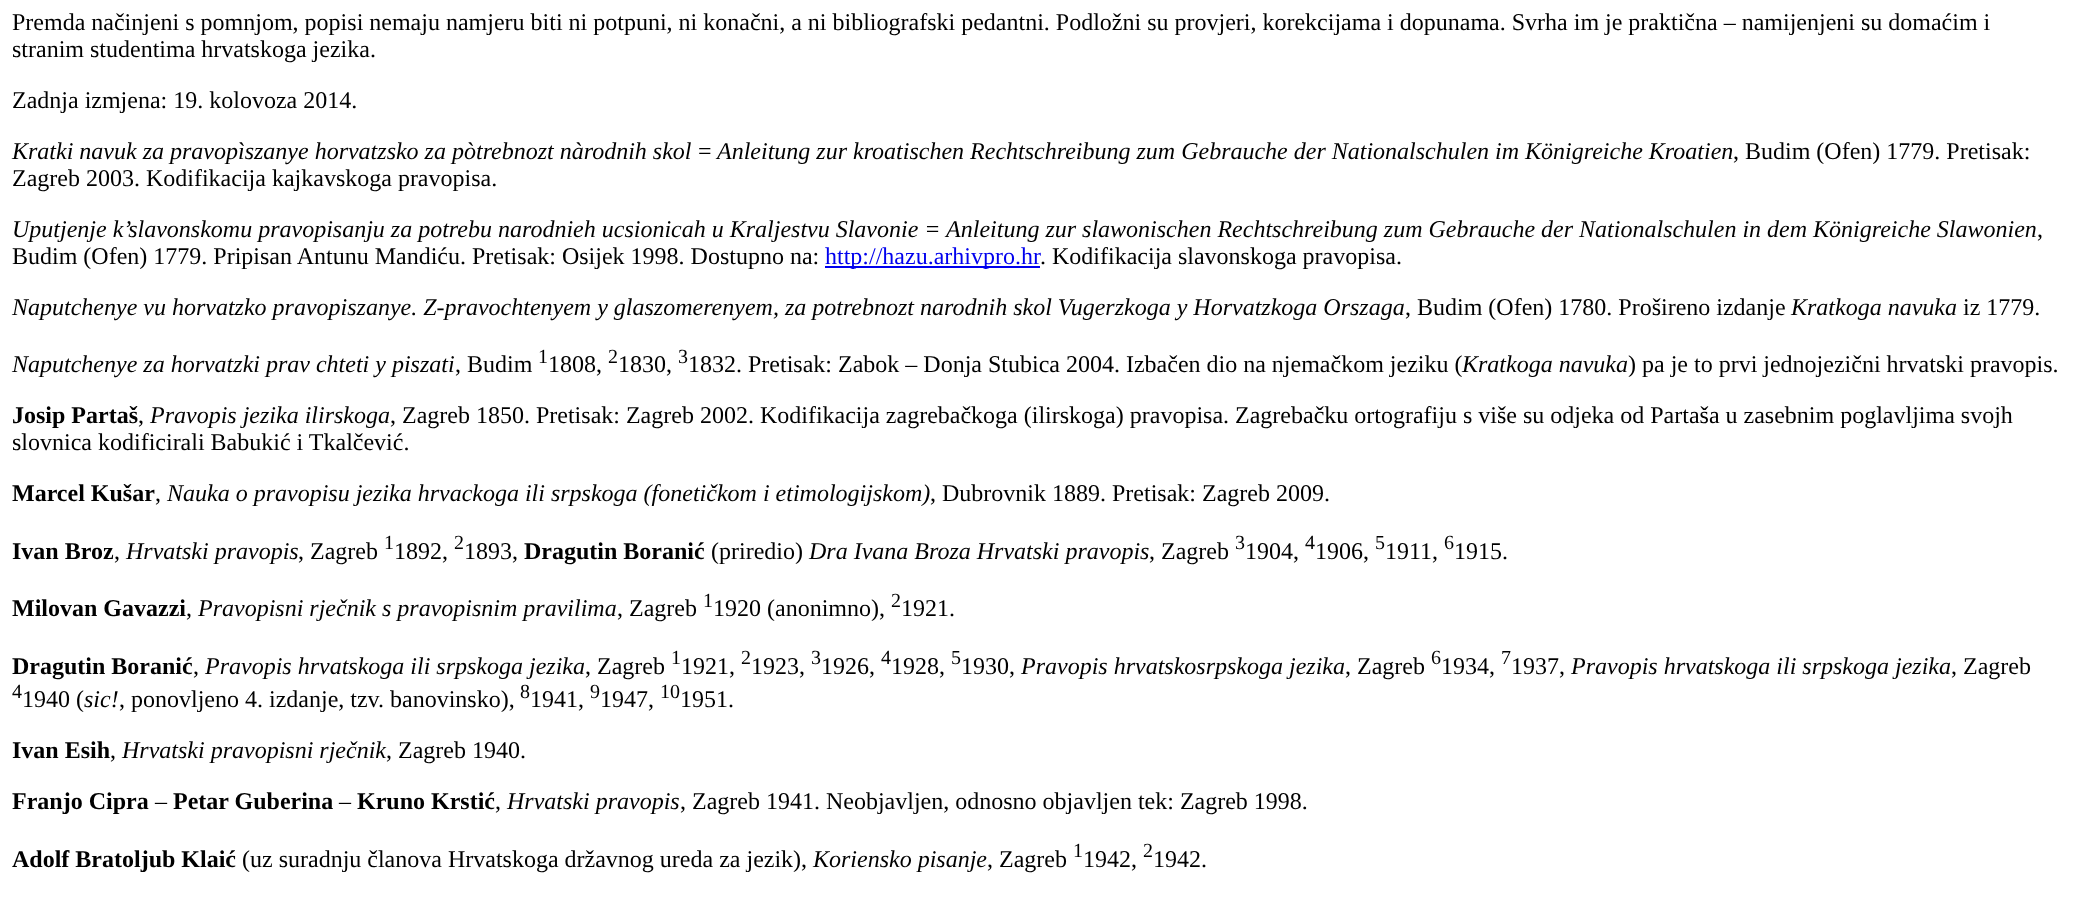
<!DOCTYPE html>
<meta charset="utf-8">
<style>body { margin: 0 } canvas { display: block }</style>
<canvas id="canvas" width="2075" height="908"></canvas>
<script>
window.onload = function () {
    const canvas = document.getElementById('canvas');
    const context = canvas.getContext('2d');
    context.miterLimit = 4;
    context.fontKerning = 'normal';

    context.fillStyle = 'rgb(255, 255, 255)';
    context.fillRect(0, 0, 2075, 908);
    context.fillStyle = 'rgb(0, 0, 238)';
    context.fillRect(825, 266, 215, 2);
    context.font = '24px Liberation Serif';
    context.fillStyle = 'rgb(0, 0, 0)';
    context.fillText('Premda načinjeni s pomnjom, popisi nemaju namjeru biti ni potpuni, ni konačni, a ni bibliografski pedantni. Podložni su provjeri, korekcijama i dopunama. Svrha im je praktična – namijenjeni su domaćim i', 12, 30);
    context.fillText('stranim studentima hrvatskoga jezika.', 12, 57);
    context.fillText('Zadnja izmjena: 19. kolovoza 2014.', 12, 108);
    context.font = 'italic 24px Liberation Serif';
    context.fillText('Kratki navuk za pravopìszanye horvatzsko za pòtrebnozt nàrodnih skol', 12, 159);
    context.font = '24px Liberation Serif';
    context.fillText('=', 698, 159);
    context.font = 'italic 24px Liberation Serif';
    context.fillText('Anleitung zur kroatischen Rechtschreibung zum Gebrauche der Nationalschulen im Königreiche Kroatien', 717, 159);
    context.font = '24px Liberation Serif';
    context.fillText(', Budim (Ofen) 1779. Pretisak:', 1733, 159);
    context.fillText('Zagreb 2003. Kodifikacija kajkavskoga pravopisa.', 12, 186);
    context.font = 'italic 24px Liberation Serif';
    context.fillText('Uputjenje k’slavonskomu pravopisanju za potrebu narodnieh ucsionicah u Kraljestvu Slavonie = Anleitung zur slawonischen Rechtschreibung zum Gebrauche der Nationalschulen in dem Königreiche Slawonien', 12, 237);
    context.font = '24px Liberation Serif';
    context.fillText(',', 2037, 237);
    context.fillText('Budim (Ofen) 1779. Pripisan Antunu Mandiću. Pretisak: Osijek 1998. Dostupno na:', 12, 264);
    context.fillStyle = 'rgb(0, 0, 238)';
    context.fillText('http://hazu.arhivpro.hr', 825, 264);
    context.fillStyle = 'rgb(0, 0, 0)';
    context.fillText('. Kodifikacija slavonskoga pravopisa.', 1040, 264);
    context.font = 'italic 24px Liberation Serif';
    context.fillText('Naputchenye vu horvatzko pravopiszanye. Z-pravochtenyem y glaszomerenyem, za potrebnozt narodnih skol Vugerzkoga y Horvatzkoga Orszaga', 12, 315);
    context.font = '24px Liberation Serif';
    context.fillText(', Budim (Ofen) 1780. Prošireno izdanje', 1405, 315);
    context.font = 'italic 24px Liberation Serif';
    context.fillText('Kratkoga navuka', 1791, 315);
    context.font = '24px Liberation Serif';
    context.fillText('iz 1779.', 1963, 315);
    context.font = 'italic 24px Liberation Serif';
    context.fillText('Naputchenye za horvatzki prav chteti y piszati', 12, 372);
    context.font = '24px Liberation Serif';
    context.fillText(', Budim', 455, 372);
    context.font = '20px Liberation Serif';
    context.fillText('1', 538, 363);
    context.font = '24px Liberation Serif';
    context.fillText('1808,', 548, 372);
    context.font = '20px Liberation Serif';
    context.fillText('2', 608, 363);
    context.font = '24px Liberation Serif';
    context.fillText('1830,', 618, 372);
    context.font = '20px Liberation Serif';
    context.fillText('3', 678, 363);
    context.font = '24px Liberation Serif';
    context.fillText('1832. Pretisak: Zabok – Donja Stubica 2004. Izbačen dio na njemačkom jeziku (', 688, 372);
    context.font = 'italic 24px Liberation Serif';
    context.fillText('Kratkoga navuka', 1462, 372);
    context.font = '24px Liberation Serif';
    context.fillText(') pa je to prvi jednojezični hrvatski pravopis.', 1628, 372);
    context.font = 'bold 24px Liberation Serif';
    context.fillText('Josip Partaš', 12, 423);
    context.font = '24px Liberation Serif';
    context.fillText(',', 138, 423);
    context.font = 'italic 24px Liberation Serif';
    context.fillText('Pravopis jezika ilirskoga', 150, 423);
    context.font = '24px Liberation Serif';
    context.fillText(', Zagreb 1850. Pretisak: Zagreb 2002. Kodifikacija zagrebačkoga (ilirskoga) pravopisa. Zagrebačku ortografiju s više su odjeka od Partaša u zasebnim poglavljima svojh', 390, 423);
    context.fillText('slovnica kodificirali Babukić i Tkalčević.', 12, 450);
    context.font = 'bold 24px Liberation Serif';
    context.fillText('Marcel Kušar', 12, 501);
    context.font = '24px Liberation Serif';
    context.fillText(',', 155, 501);
    context.font = 'italic 24px Liberation Serif';
    context.fillText('Nauka o pravopisu jezika hrvackoga ili srpskoga (fonetičkom i etimologijskom)', 167, 501);
    context.font = '24px Liberation Serif';
    context.fillText(', Dubrovnik 1889. Pretisak: Zagreb 2009.', 930, 501);
    context.font = 'bold 24px Liberation Serif';
    context.fillText('Ivan Broz', 12, 559);
    context.font = '24px Liberation Serif';
    context.fillText(',', 114, 559);
    context.font = 'italic 24px Liberation Serif';
    context.fillText('Hrvatski pravopis', 126, 559);
    context.font = '24px Liberation Serif';
    context.fillText(', Zagreb', 298, 559);
    context.font = '20px Liberation Serif';
    context.fillText('1', 384, 549);
    context.font = '24px Liberation Serif';
    context.fillText('1892,', 394, 559);
    context.font = '20px Liberation Serif';
    context.fillText('2', 454, 549);
    context.font = '24px Liberation Serif';
    context.fillText('1893,', 464, 559);
    context.font = 'bold 24px Liberation Serif';
    context.fillText('Dragutin Boranić', 524, 559);
    context.font = '24px Liberation Serif';
    context.fillText('(priredio)', 711, 559);
    context.font = 'italic 24px Liberation Serif';
    context.fillText('Dra Ivana Broza Hrvatski pravopis', 809, 559);
    context.font = '24px Liberation Serif';
    context.fillText(', Zagreb', 1149, 559);
    context.font = '20px Liberation Serif';
    context.fillText('3', 1235, 549);
    context.font = '24px Liberation Serif';
    context.fillText('1904,', 1245, 559);
    context.font = '20px Liberation Serif';
    context.fillText('4', 1305, 549);
    context.font = '24px Liberation Serif';
    context.fillText('1906,', 1315, 559);
    context.font = '20px Liberation Serif';
    context.fillText('5', 1375, 549);
    context.font = '24px Liberation Serif';
    context.fillText('1911,', 1385, 559);
    context.font = '20px Liberation Serif';
    context.fillText('6', 1444, 549);
    context.font = '24px Liberation Serif';
    context.fillText('1915.', 1454, 559);
    context.font = 'bold 24px Liberation Serif';
    context.fillText('Milovan Gavazzi', 12, 616);
    context.font = '24px Liberation Serif';
    context.fillText(',', 186, 616);
    context.font = 'italic 24px Liberation Serif';
    context.fillText('Pravopisni rječnik s pravopisnim pravilima', 198, 616);
    context.font = '24px Liberation Serif';
    context.fillText(', Zagreb', 617, 616);
    context.font = '20px Liberation Serif';
    context.fillText('1', 703, 607);
    context.font = '24px Liberation Serif';
    context.fillText('1920 (anonimno),', 713, 616);
    context.font = '20px Liberation Serif';
    context.fillText('2', 891, 607);
    context.font = '24px Liberation Serif';
    context.fillText('1921.', 901, 616);
    context.font = 'bold 24px Liberation Serif';
    context.fillText('Dragutin Boranić', 12, 674);
    context.font = '24px Liberation Serif';
    context.fillText(',', 193, 674);
    context.font = 'italic 24px Liberation Serif';
    context.fillText('Pravopis hrvatskoga ili srpskoga jezika', 205, 674);
    context.font = '24px Liberation Serif';
    context.fillText(', Zagreb', 585, 674);
    context.font = '20px Liberation Serif';
    context.fillText('1', 671, 664);
    context.font = '24px Liberation Serif';
    context.fillText('1921,', 681, 674);
    context.font = '20px Liberation Serif';
    context.fillText('2', 741, 664);
    context.font = '24px Liberation Serif';
    context.fillText('1923,', 751, 674);
    context.font = '20px Liberation Serif';
    context.fillText('3', 811, 664);
    context.font = '24px Liberation Serif';
    context.fillText('1926,', 821, 674);
    context.font = '20px Liberation Serif';
    context.fillText('4', 881, 664);
    context.font = '24px Liberation Serif';
    context.fillText('1928,', 891, 674);
    context.font = '20px Liberation Serif';
    context.fillText('5', 951, 664);
    context.font = '24px Liberation Serif';
    context.fillText('1930,', 961, 674);
    context.font = 'italic 24px Liberation Serif';
    context.fillText('Pravopis hrvatskosrpskoga jezika', 1021, 674);
    context.font = '24px Liberation Serif';
    context.fillText(', Zagreb', 1345, 674);
    context.font = '20px Liberation Serif';
    context.fillText('6', 1431, 664);
    context.font = '24px Liberation Serif';
    context.fillText('1934,', 1441, 674);
    context.font = '20px Liberation Serif';
    context.fillText('7', 1501, 664);
    context.font = '24px Liberation Serif';
    context.fillText('1937,', 1511, 674);
    context.font = 'italic 24px Liberation Serif';
    context.fillText('Pravopis hrvatskoga ili srpskoga jezika', 1571, 674);
    context.font = '24px Liberation Serif';
    context.fillText(', Zagreb', 1951, 674);
    context.font = '20px Liberation Serif';
    context.fillText('4', 12, 698);
    context.font = '24px Liberation Serif';
    context.fillText('1940 (', 22, 707);
    context.font = 'italic 24px Liberation Serif';
    context.fillText('sic!', 84, 707);
    context.font = '24px Liberation Serif';
    context.fillText(', ponovljeno 4. izdanje, tzv. banovinsko),', 119, 707);
    context.font = '20px Liberation Serif';
    context.fillText('8', 520, 698);
    context.font = '24px Liberation Serif';
    context.fillText('1941,', 530, 707);
    context.font = '20px Liberation Serif';
    context.fillText('9', 590, 698);
    context.font = '24px Liberation Serif';
    context.fillText('1947,', 600, 707);
    context.font = '20px Liberation Serif';
    context.fillText('10', 660, 698);
    context.font = '24px Liberation Serif';
    context.fillText('1951.', 680, 707);
    context.font = 'bold 24px Liberation Serif';
    context.fillText('Ivan Esih', 12, 758);
    context.font = '24px Liberation Serif';
    context.fillText(',', 110, 758);
    context.font = 'italic 24px Liberation Serif';
    context.fillText('Hrvatski pravopisni rječnik', 122, 758);
    context.font = '24px Liberation Serif';
    context.fillText(', Zagreb 1940.', 386, 758);
    context.font = 'bold 24px Liberation Serif';
    context.fillText('Franjo Cipra', 12, 809);
    context.font = '24px Liberation Serif';
    context.fillText('–', 155, 809);
    context.font = 'bold 24px Liberation Serif';
    context.fillText('Petar Guberina', 173, 809);
    context.font = '24px Liberation Serif';
    context.fillText('–', 339, 809);
    context.font = 'bold 24px Liberation Serif';
    context.fillText('Kruno Krstić', 357, 809);
    context.font = 'italic 24px Liberation Serif';
    context.fillText('Hrvatski pravopis', 507, 809);
    context.font = '24px Liberation Serif';
    context.fillText(', Zagreb 1941. Neobjavljen, odnosno objavljen tek: Zagreb 1998.', 680, 809);
    context.fillText(',', 495, 809);
    context.font = 'bold 24px Liberation Serif';
    context.fillText('Adolf Bratoljub Klaić', 12, 867);
    context.font = '24px Liberation Serif';
    context.fillText('(uz suradnju članova Hrvatskoga državnog ureda za jezik),', 242, 867);
    context.font = 'italic 24px Liberation Serif';
    context.fillText('Koriensko pisanje', 813, 867);
    context.font = '24px Liberation Serif';
    context.fillText(', Zagreb', 987, 867);
    context.font = '20px Liberation Serif';
    context.fillText('1', 1073, 857);
    context.font = '24px Liberation Serif';
    context.fillText('1942,', 1083, 867);
    context.font = '20px Liberation Serif';
    context.fillText('2', 1143, 857);
    context.font = '24px Liberation Serif';
    context.fillText('1942.', 1153, 867);
};
</script>
